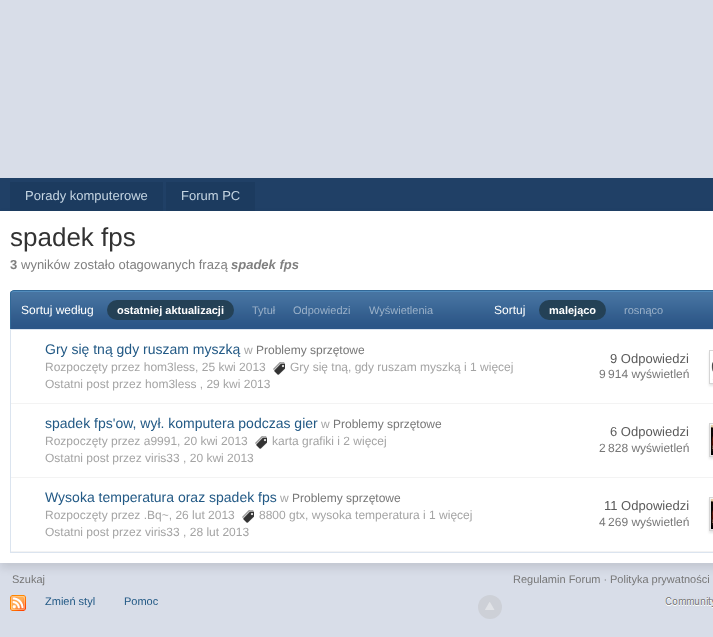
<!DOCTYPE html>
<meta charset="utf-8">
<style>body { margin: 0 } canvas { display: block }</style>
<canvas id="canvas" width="713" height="637"></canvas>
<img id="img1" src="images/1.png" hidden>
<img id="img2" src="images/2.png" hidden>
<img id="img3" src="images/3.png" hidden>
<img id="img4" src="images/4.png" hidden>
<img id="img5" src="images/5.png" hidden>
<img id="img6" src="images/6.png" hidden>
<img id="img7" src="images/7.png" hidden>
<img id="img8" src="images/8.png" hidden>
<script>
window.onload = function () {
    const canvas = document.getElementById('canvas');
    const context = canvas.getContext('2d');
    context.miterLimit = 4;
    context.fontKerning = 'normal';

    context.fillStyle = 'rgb(216, 221, 232)';
    context.fillRect(0, 0, 713, 637);
    context.fillStyle = 'rgb(32, 64, 102)';
    context.fillRect(0, 178, 713, 33);
    context.fillStyle = 'rgba(0, 0, 0, 0.1)';
    context.filter = 'blur(4.5px)';
    context.beginPath();
    context.rect(0, 216, 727, 352);
    context.fill();
    context.filter = 'none';
    context.fillStyle = 'rgb(28, 59, 95)';
    context.fillRect(10, 182, 153, 29);
    context.fillRect(166, 182, 89, 29);
    context.fillStyle = 'rgb(255, 255, 255)';
    context.fillRect(0, 211, 713, 352);
    context.fillStyle = 'rgb(44, 86, 135)';
    context.fillRect(11, 326, 702, 3);
    context.drawImage(document.getElementById('img1'), 10, 291, 703, 35);
    context.fillStyle = 'rgb(82, 140, 188)';
    context.beginPath();
    context.moveTo(14, 292);
    context.lineTo(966, 292);
    context.bezierCurveTo(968, 292, 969, 293, 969, 295);
    context.bezierCurveTo(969, 293, 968, 291, 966, 291);
    context.lineTo(14, 291);
    context.bezierCurveTo(12, 291, 11, 293, 11, 295);
    context.bezierCurveTo(11, 293, 12, 292, 14, 292);
    context.closePath();
    context.fill();
    context.fillStyle = 'rgb(49, 104, 151)';
    context.beginPath();
    context.moveTo(14, 290);
    context.lineTo(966, 290);
    context.bezierCurveTo(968, 290, 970, 292, 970, 294);
    context.lineTo(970, 329);
    context.lineTo(10, 329);
    context.lineTo(10, 294);
    context.bezierCurveTo(10, 292, 12, 290, 14, 290);
    context.closePath();
    context.moveTo(14, 291);
    context.lineTo(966, 291);
    context.bezierCurveTo(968, 291, 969, 292, 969, 294);
    context.lineTo(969, 329);
    context.lineTo(11, 329);
    context.lineTo(11, 294);
    context.bezierCurveTo(11, 292, 12, 291, 14, 291);
    context.closePath();
    context.fill('evenodd');
    context.fillStyle = 'rgb(36, 65, 86)';
    context.beginPath();
    context.roundRect(107, 300, 127, 20, 10);
    context.fill();
    context.beginPath();
    context.roundRect(539, 300, 67, 20, 10);
    context.fill();
    context.strokeStyle = 'rgb(219, 228, 239)';
    context.strokeRect(10.5, 329.5, 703, 223);
    context.drawImage(document.getElementById('img2'), 273, 362, 12, 13);
    context.fillStyle = 'rgb(243, 243, 243)';
    context.fillRect(11, 403, 702, 1);
    context.save();
    context.beginPath();
    context.moveTo(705, 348);
    context.lineTo(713, 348);
    context.lineTo(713, 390);
    context.lineTo(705, 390);
    context.closePath();
    context.moveTo(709, 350);
    context.lineTo(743, 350);
    context.lineTo(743, 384);
    context.lineTo(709, 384);
    context.closePath();
    context.clip('evenodd');
    context.fillStyle = 'rgba(0, 0, 0, 0.1)';
    context.filter = 'blur(1px)';
    context.beginPath();
    context.rect(709, 352, 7, 34);
    context.fill();
    context.filter = 'none';
    context.restore();
    context.strokeStyle = 'rgb(213, 213, 213)';
    context.strokeRect(709.5, 350.5, 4, 33);
    context.drawImage(document.getElementById('img3'), 711, 362, 2, 18);
    context.drawImage(document.getElementById('img2'), 255, 436, 12, 13);
    context.fillRect(11, 477, 702, 1);
    context.fillStyle = 'rgba(0, 0, 0, 0.1)';
    context.filter = 'blur(1px)';
    context.beginPath();
    context.rect(709, 425, 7, 34);
    context.fill();
    context.filter = 'none';
    context.strokeRect(709.5, 423.5, 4, 33);
    context.drawImage(document.getElementById('img4'), 711, 425, 2, 30);
    context.drawImage(document.getElementById('img2'), 242, 510, 12, 13);
    context.fillStyle = 'rgb(243, 243, 243)';
    context.fillRect(11, 551, 702, 1);
    context.fillStyle = 'rgba(0, 0, 0, 0.1)';
    context.filter = 'blur(1px)';
    context.beginPath();
    context.rect(709, 499, 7, 34);
    context.fill();
    context.filter = 'none';
    context.strokeRect(709.5, 497.5, 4, 33);
    context.drawImage(document.getElementById('img5'), 711, 499, 2, 30);
    context.drawImage(document.getElementById('img6'), 10, 595, 16, 16);
    context.fillStyle = 'rgb(205, 208, 215)';
    context.beginPath();
    context.arc(490, 607, 12, 0, 2 * Math.PI);
    context.fill();
    context.drawImage(document.getElementById('img7'), 485, 602, 10, 8);
    context.drawImage(document.getElementById('img8'), 665, 597, 48, 11);
    context.font = '13px Liberation Sans';
    context.fillStyle = 'rgb(197, 213, 226)';
    context.fillText('Porady komputerowe', 25, 200);
    context.fillText('Forum PC', 181, 200);
    context.font = '26px Liberation Sans';
    context.fillStyle = 'rgb(50, 50, 50)';
    context.fillText('spadek fps', 10, 246);
    context.font = 'bold 13px Liberation Sans';
    context.fillStyle = 'rgb(127, 127, 127)';
    context.fillText('3', 10, 269);
    context.font = '13px Liberation Sans';
    context.fillText('wyników zostało otagowanych frazą', 21, 269);
    context.font = 'italic bold 13px Liberation Sans';
    context.fillText('spadek fps', 231, 269);
    context.font = '12px Liberation Sans';
    context.fillStyle = 'rgb(255, 255, 255)';
    context.fillText('Sortuj według', 21, 314);
    context.font = 'bold 11px Liberation Sans';
    context.fillText('ostatniej aktualizacji', 117, 314);
    context.font = '11px Liberation Sans';
    context.fillStyle = 'rgb(155, 177, 201)';
    context.fillText('Tytuł', 252, 314);
    context.fillText('Odpowiedzi', 293, 314);
    context.fillText('Wyświetlenia', 369, 314);
    context.font = '12px Liberation Sans';
    context.fillStyle = 'rgb(255, 255, 255)';
    context.fillText('Sortuj', 494, 314);
    context.font = 'bold 11px Liberation Sans';
    context.fillText('malejąco', 549, 314);
    context.font = '11px Liberation Sans';
    context.fillStyle = 'rgb(155, 177, 201)';
    context.fillText('rosnąco', 624, 314);
    context.font = '14px Liberation Sans';
    context.fillStyle = 'rgb(34, 89, 133)';
    context.fillText('Gry się tną gdy ruszam myszką', 45, 354);
    context.font = '12px Liberation Sans';
    context.fillStyle = 'rgb(164, 164, 164)';
    context.fillText('w', 244, 354);
    context.fillStyle = 'rgb(119, 119, 119)';
    context.fillText('Problemy sprzętowe', 256, 354);
    context.fillStyle = 'rgb(164, 164, 164)';
    context.fillText('Rozpoczęty przez hom3less, 25 kwi 2013', 45, 371);
    context.fillText('Gry się tną, gdy ruszam myszką i 1 więcej', 290, 371);
    context.fillText('Ostatni post przez hom3less , 29 kwi 2013', 45, 388);
    context.font = '13px Liberation Sans';
    context.fillStyle = 'rgb(90, 90, 90)';
    context.fillText('9 Odpowiedzi', 610, 363);
    context.font = '12px Liberation Sans';
    context.fillStyle = 'rgb(119, 119, 119)';
    context.fillText('9 914 wyświetleń', 599, 378);
    context.font = '14px Liberation Sans';
    context.fillStyle = 'rgb(34, 89, 133)';
    context.fillText('spadek fps\'ow, wył. komputera podczas gier', 45, 428);
    context.font = '12px Liberation Sans';
    context.fillStyle = 'rgb(164, 164, 164)';
    context.fillText('w', 321, 428);
    context.fillStyle = 'rgb(119, 119, 119)';
    context.fillText('Problemy sprzętowe', 333, 428);
    context.fillStyle = 'rgb(164, 164, 164)';
    context.fillText('Rozpoczęty przez a9991, 20 kwi 2013', 45, 445);
    context.fillText('karta grafiki i 2 więcej', 272, 445);
    context.fillText('Ostatni post przez viris33 , 20 kwi 2013', 45, 462);
    context.font = '13px Liberation Sans';
    context.fillStyle = 'rgb(90, 90, 90)';
    context.fillText('6 Odpowiedzi', 610, 436);
    context.font = '12px Liberation Sans';
    context.fillStyle = 'rgb(119, 119, 119)';
    context.fillText('2 828 wyświetleń', 599, 452);
    context.font = '14px Liberation Sans';
    context.fillStyle = 'rgb(34, 89, 133)';
    context.fillText('Wysoka temperatura oraz spadek fps', 45, 502);
    context.font = '12px Liberation Sans';
    context.fillStyle = 'rgb(164, 164, 164)';
    context.fillText('w', 280, 502);
    context.fillStyle = 'rgb(119, 119, 119)';
    context.fillText('Problemy sprzętowe', 292, 502);
    context.fillStyle = 'rgb(164, 164, 164)';
    context.fillText('Rozpoczęty przez .Bq~, 26 lut 2013', 45, 519);
    context.fillText('8800 gtx, wysoka temperatura i 1 więcej', 259, 519);
    context.fillText('Ostatni post przez viris33 , 28 lut 2013', 45, 536);
    context.font = '13px Liberation Sans';
    context.fillStyle = 'rgb(90, 90, 90)';
    context.fillText('11 Odpowiedzi', 604, 510);
    context.font = '12px Liberation Sans';
    context.fillStyle = 'rgb(119, 119, 119)';
    context.fillText('4 269 wyświetleń', 599, 526);
    context.font = '11px Liberation Sans';
    context.fillText('Szukaj', 12, 583);
    context.fillText('Regulamin Forum ·', 513, 583);
    context.fillText('Polityka prywatności', 610, 583);
    context.fillStyle = 'rgb(34, 89, 133)';
    context.fillText('Zmień styl', 45, 605);
    context.fillText('Pomoc', 124, 605);
};
</script>
